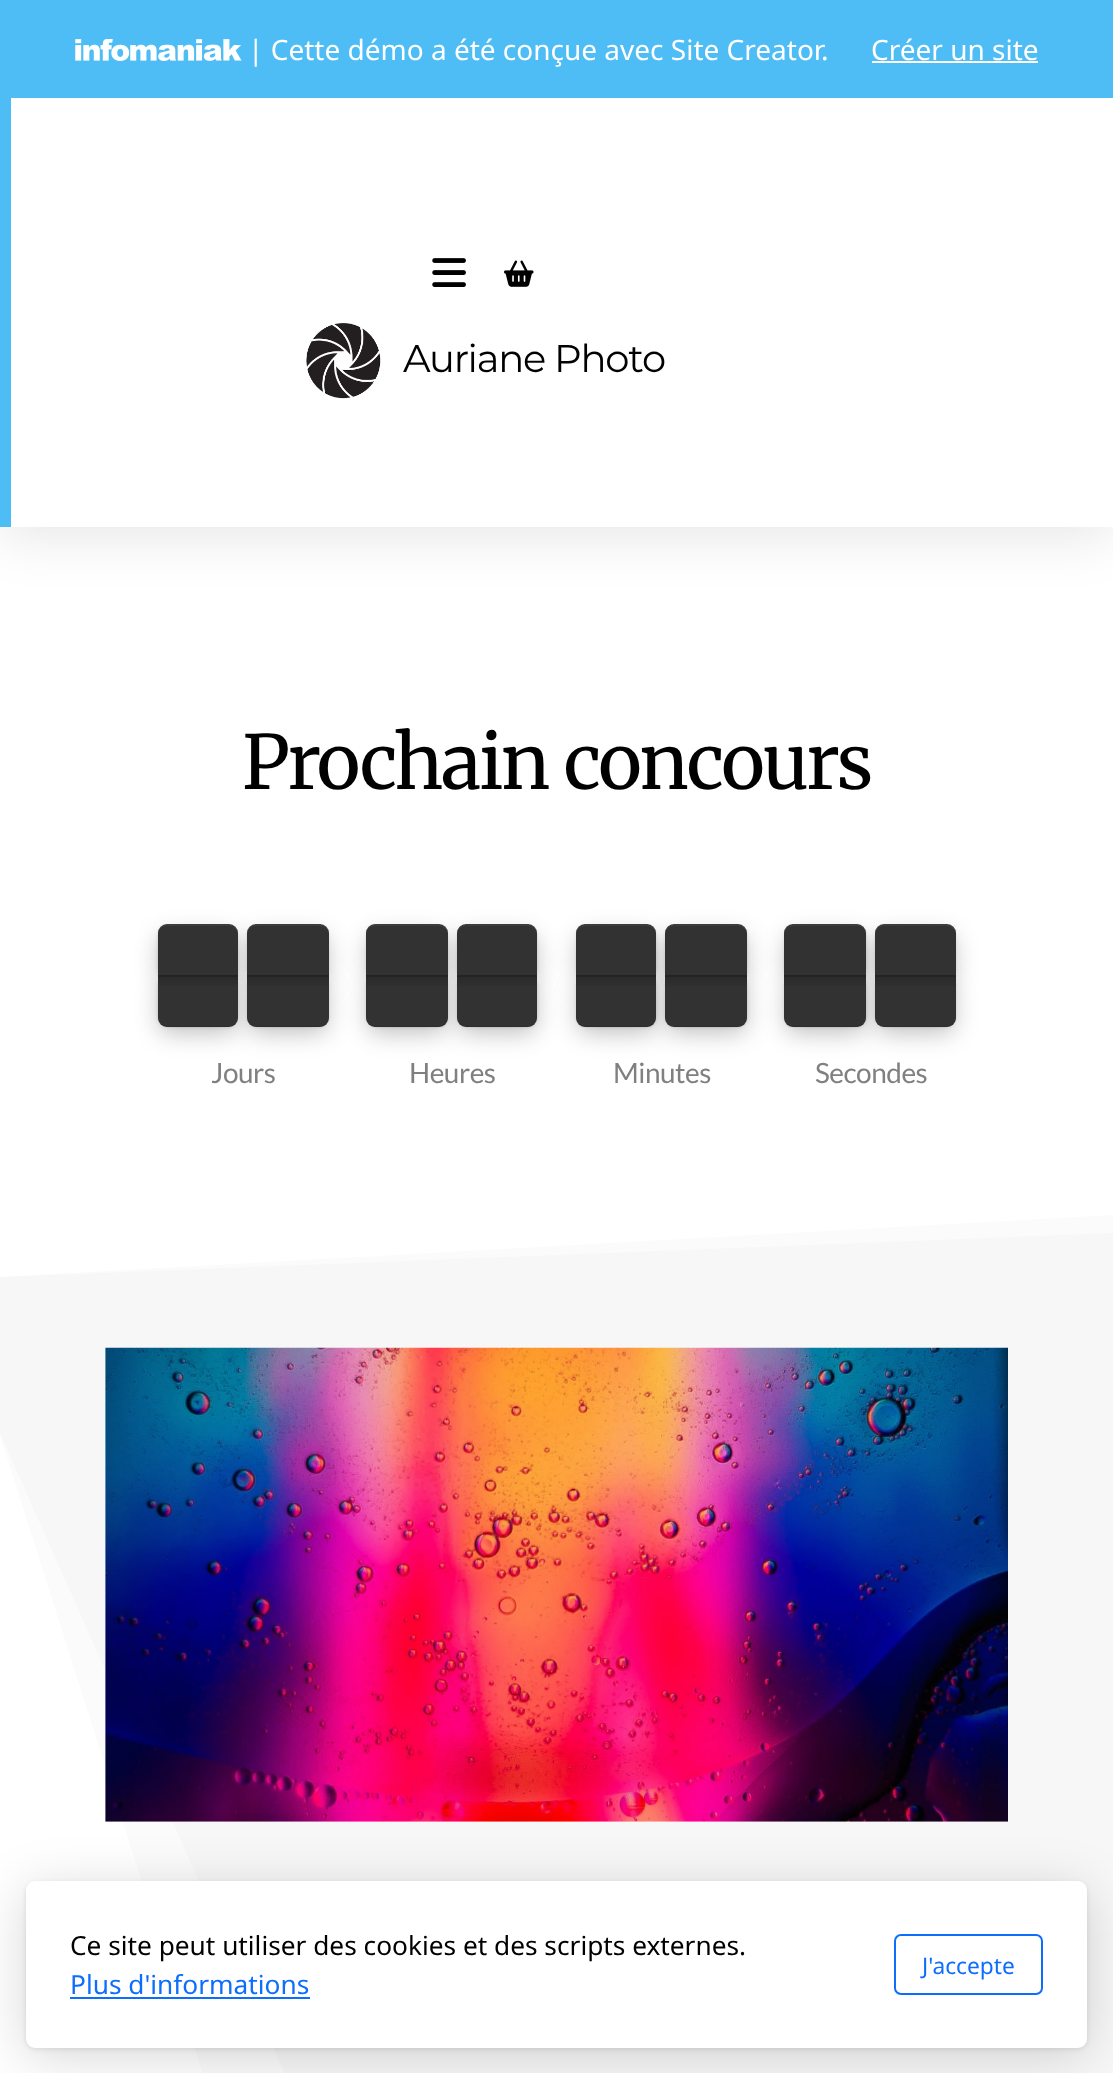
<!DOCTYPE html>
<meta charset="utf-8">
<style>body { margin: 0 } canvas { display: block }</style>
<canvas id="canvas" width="1113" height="2073"></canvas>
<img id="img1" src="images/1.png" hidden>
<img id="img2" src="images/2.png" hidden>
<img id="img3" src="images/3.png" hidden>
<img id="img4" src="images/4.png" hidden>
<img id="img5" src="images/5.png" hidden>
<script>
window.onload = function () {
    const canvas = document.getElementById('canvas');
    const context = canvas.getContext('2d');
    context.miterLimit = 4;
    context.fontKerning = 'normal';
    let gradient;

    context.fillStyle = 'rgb(255, 255, 255)';
    context.fillRect(0, 0, 1113, 2073);
    context.fillStyle = 'rgba(0, 0, 0, 0.09)';
    context.filter = 'blur(25.5px)';
    context.beginPath();
    context.rect(0, 110, 1113, 429);
    context.fill();
    context.filter = 'none';
    context.fillStyle = 'rgb(78, 189, 245)';
    context.fillRect(0, 0, 1113, 98);
    context.drawImage(document.getElementById('img1'), 75, 39, 167, 22);
    context.fillStyle = 'rgb(255, 255, 255)';
    context.fillRect(872, 61, 166, 2);
    context.fillRect(11, 98, 1102, 429);
    context.fillStyle = 'rgb(78, 189, 245)';
    context.fillRect(0, 98, 11, 429);
    context.drawImage(document.getElementById('img2'), 432, 258, 34, 29);
    context.drawImage(document.getElementById('img3'), 504, 260, 30, 27);
    context.drawImage(document.getElementById('img4'), 306, 323, 75, 76);
    context.fillStyle = 'rgba(0, 0, 0, 0.25)';
    context.filter = 'blur(2px)';
    context.beginPath();
    context.roundRect(159, 928, 77, 50, 9);
    context.fill();
    context.filter = 'none';
    context.filter = 'blur(11.5px)';
    context.beginPath();
    context.roundRect(159, 935, 77, 50, 9);
    context.fill();
    context.filter = 'none';
    context.filter = 'blur(2px)';
    context.beginPath();
    context.roundRect(159, 978, 77, 48, 9);
    context.fill();
    context.filter = 'none';
    context.filter = 'blur(11.5px)';
    context.beginPath();
    context.roundRect(159, 985, 77, 48, 9);
    context.fill();
    context.filter = 'none';
    context.filter = 'blur(11.5px)';
    context.beginPath();
    context.roundRect(249, 935, 78, 50, 9);
    context.fill();
    context.filter = 'none';
    context.filter = 'blur(11.5px)';
    context.beginPath();
    context.roundRect(249, 985, 78, 48, 9);
    context.fill();
    context.filter = 'none';
    context.fillStyle = 'rgb(51, 50, 50)';
    context.beginPath();
    context.roundRect(158, 924, 80, 53, [9, 9, 0, 0]);
    context.fill();
    context.fillStyle = 'rgba(255, 255, 255, 0.05)';
    context.beginPath();
    context.moveTo(167, 926);
    context.lineTo(229, 926);
    context.bezierCurveTo(234, 926, 238, 930, 238, 935);
    context.bezierCurveTo(238, 922, 229, 924, 219, 924);
    context.lineTo(177, 924);
    context.bezierCurveTo(167, 924, 158, 922, 158, 935);
    context.bezierCurveTo(158, 930, 162, 926, 167, 926);
    context.closePath();
    context.fill();
    context.fillStyle = 'rgb(51, 50, 50)';
    context.beginPath();
    context.roundRect(158, 975, 80, 52, [0, 0, 9, 9]);
    context.fill();
    context.fillStyle = 'rgba(0, 0, 0, 0.1)';
    context.beginPath();
    context.moveTo(158, 1016);
    context.bezierCurveTo(158, 1029, 167, 1027, 177, 1027);
    context.lineTo(219, 1027);
    context.bezierCurveTo(229, 1027, 238, 1029, 238, 1016);
    context.bezierCurveTo(238, 1021, 234, 1026, 229, 1026);
    context.lineTo(167, 1026);
    context.bezierCurveTo(162, 1026, 158, 1021, 158, 1016);
    context.closePath();
    context.fill();
    gradient = context.createLinearGradient(198, 975, 198, 1027);
    gradient.addColorStop(0.03, 'rgba(0, 0, 0, 0.3)');
    gradient.addColorStop(0.03, 'rgba(0, 0, 0, 0.15)');
    gradient.addColorStop(0.3, 'rgba(0, 0, 0, 0)');
    context.fillStyle = gradient;
    context.fillRect(158, 975, 80, 11);
    context.fillStyle = 'rgba(0, 0, 0, 0.25)';
    context.filter = 'blur(2px)';
    context.beginPath();
    context.roundRect(249, 928, 78, 50, 9);
    context.fill();
    context.filter = 'none';
    context.filter = 'blur(2px)';
    context.beginPath();
    context.roundRect(249, 978, 78, 48, 9);
    context.fill();
    context.filter = 'none';
    context.fillStyle = 'rgb(51, 50, 50)';
    context.beginPath();
    context.roundRect(247, 924, 82, 53, [9, 9, 0, 0]);
    context.fill();
    context.fillStyle = 'rgba(255, 255, 255, 0.05)';
    context.beginPath();
    context.moveTo(256, 926);
    context.lineTo(320, 926);
    context.bezierCurveTo(325, 926, 329, 930, 329, 935);
    context.bezierCurveTo(329, 922, 320, 924, 309, 924);
    context.lineTo(267, 924);
    context.bezierCurveTo(256, 924, 247, 922, 247, 935);
    context.bezierCurveTo(247, 930, 251, 926, 256, 926);
    context.closePath();
    context.fill();
    context.fillStyle = 'rgb(51, 50, 50)';
    context.beginPath();
    context.roundRect(247, 975, 82, 52, [0, 0, 9, 9]);
    context.fill();
    context.fillStyle = 'rgba(0, 0, 0, 0.1)';
    context.beginPath();
    context.moveTo(247, 1016);
    context.bezierCurveTo(247, 1029, 256, 1027, 267, 1027);
    context.lineTo(309, 1027);
    context.bezierCurveTo(320, 1027, 329, 1029, 329, 1016);
    context.bezierCurveTo(329, 1021, 325, 1026, 320, 1026);
    context.lineTo(256, 1026);
    context.bezierCurveTo(251, 1026, 247, 1021, 247, 1016);
    context.closePath();
    context.fill();
    gradient = context.createLinearGradient(288, 975, 288, 1027);
    gradient.addColorStop(0.03, 'rgba(0, 0, 0, 0.3)');
    gradient.addColorStop(0.03, 'rgba(0, 0, 0, 0.15)');
    gradient.addColorStop(0.3, 'rgba(0, 0, 0, 0)');
    context.fillStyle = gradient;
    context.fillRect(247, 975, 82, 11);
    context.fillStyle = 'rgba(0, 0, 0, 0.25)';
    context.filter = 'blur(2px)';
    context.beginPath();
    context.roundRect(368, 928, 78, 50, 9);
    context.fill();
    context.filter = 'none';
    context.filter = 'blur(11.5px)';
    context.beginPath();
    context.roundRect(368, 935, 78, 50, 9);
    context.fill();
    context.filter = 'none';
    context.filter = 'blur(2px)';
    context.beginPath();
    context.roundRect(368, 978, 78, 48, 9);
    context.fill();
    context.filter = 'none';
    context.filter = 'blur(11.5px)';
    context.beginPath();
    context.roundRect(368, 985, 78, 48, 9);
    context.fill();
    context.filter = 'none';
    context.filter = 'blur(11.5px)';
    context.beginPath();
    context.roundRect(459, 935, 77, 50, 9);
    context.fill();
    context.filter = 'none';
    context.filter = 'blur(11.5px)';
    context.beginPath();
    context.roundRect(459, 985, 77, 48, 9);
    context.fill();
    context.filter = 'none';
    context.fillStyle = 'rgb(51, 50, 50)';
    context.beginPath();
    context.roundRect(366, 924, 82, 53, [9, 9, 0, 0]);
    context.fill();
    context.fillStyle = 'rgba(255, 255, 255, 0.05)';
    context.beginPath();
    context.moveTo(375, 926);
    context.lineTo(439, 926);
    context.bezierCurveTo(444, 926, 448, 930, 448, 935);
    context.bezierCurveTo(448, 922, 439, 924, 428, 924);
    context.lineTo(386, 924);
    context.bezierCurveTo(375, 924, 366, 922, 366, 935);
    context.bezierCurveTo(366, 930, 370, 926, 375, 926);
    context.closePath();
    context.fill();
    context.fillStyle = 'rgb(51, 50, 50)';
    context.beginPath();
    context.roundRect(366, 975, 82, 52, [0, 0, 9, 9]);
    context.fill();
    context.fillStyle = 'rgba(0, 0, 0, 0.1)';
    context.beginPath();
    context.moveTo(366, 1016);
    context.bezierCurveTo(366, 1029, 375, 1027, 386, 1027);
    context.lineTo(428, 1027);
    context.bezierCurveTo(439, 1027, 448, 1029, 448, 1016);
    context.bezierCurveTo(448, 1021, 444, 1026, 439, 1026);
    context.lineTo(375, 1026);
    context.bezierCurveTo(370, 1026, 366, 1021, 366, 1016);
    context.closePath();
    context.fill();
    gradient = context.createLinearGradient(407, 975, 407, 1027);
    gradient.addColorStop(0.03, 'rgba(0, 0, 0, 0.3)');
    gradient.addColorStop(0.03, 'rgba(0, 0, 0, 0.15)');
    gradient.addColorStop(0.3, 'rgba(0, 0, 0, 0)');
    context.fillStyle = gradient;
    context.fillRect(366, 975, 82, 11);
    context.fillStyle = 'rgba(0, 0, 0, 0.25)';
    context.filter = 'blur(2px)';
    context.beginPath();
    context.roundRect(459, 928, 77, 50, 9);
    context.fill();
    context.filter = 'none';
    context.filter = 'blur(2px)';
    context.beginPath();
    context.roundRect(459, 978, 77, 48, 9);
    context.fill();
    context.filter = 'none';
    context.fillStyle = 'rgb(51, 50, 50)';
    context.beginPath();
    context.roundRect(457, 924, 80, 53, [9, 9, 0, 0]);
    context.fill();
    context.fillStyle = 'rgba(255, 255, 255, 0.05)';
    context.beginPath();
    context.moveTo(466, 926);
    context.lineTo(528, 926);
    context.bezierCurveTo(533, 926, 537, 930, 537, 935);
    context.bezierCurveTo(537, 922, 528, 924, 518, 924);
    context.lineTo(476, 924);
    context.bezierCurveTo(466, 924, 457, 922, 457, 935);
    context.bezierCurveTo(457, 930, 461, 926, 466, 926);
    context.closePath();
    context.fill();
    context.fillStyle = 'rgb(51, 50, 50)';
    context.beginPath();
    context.roundRect(457, 975, 80, 52, [0, 0, 9, 9]);
    context.fill();
    context.fillStyle = 'rgba(0, 0, 0, 0.1)';
    context.beginPath();
    context.moveTo(457, 1016);
    context.bezierCurveTo(457, 1029, 466, 1027, 476, 1027);
    context.lineTo(518, 1027);
    context.bezierCurveTo(528, 1027, 537, 1029, 537, 1016);
    context.bezierCurveTo(537, 1021, 533, 1026, 528, 1026);
    context.lineTo(466, 1026);
    context.bezierCurveTo(461, 1026, 457, 1021, 457, 1016);
    context.closePath();
    context.fill();
    gradient = context.createLinearGradient(497, 975, 497, 1027);
    gradient.addColorStop(0.03, 'rgba(0, 0, 0, 0.3)');
    gradient.addColorStop(0.03, 'rgba(0, 0, 0, 0.15)');
    gradient.addColorStop(0.3, 'rgba(0, 0, 0, 0)');
    context.fillStyle = gradient;
    context.fillRect(457, 975, 80, 11);
    context.fillStyle = 'rgba(0, 0, 0, 0.25)';
    context.filter = 'blur(2px)';
    context.beginPath();
    context.roundRect(578, 928, 77, 50, 9);
    context.fill();
    context.filter = 'none';
    context.filter = 'blur(11.5px)';
    context.beginPath();
    context.roundRect(578, 935, 77, 50, 9);
    context.fill();
    context.filter = 'none';
    context.filter = 'blur(2px)';
    context.beginPath();
    context.roundRect(578, 978, 77, 48, 9);
    context.fill();
    context.filter = 'none';
    context.filter = 'blur(11.5px)';
    context.beginPath();
    context.roundRect(578, 985, 77, 48, 9);
    context.fill();
    context.filter = 'none';
    context.filter = 'blur(11.5px)';
    context.beginPath();
    context.roundRect(667, 935, 79, 50, 9);
    context.fill();
    context.filter = 'none';
    context.filter = 'blur(11.5px)';
    context.beginPath();
    context.roundRect(667, 985, 79, 48, 9);
    context.fill();
    context.filter = 'none';
    context.fillStyle = 'rgb(51, 50, 50)';
    context.beginPath();
    context.roundRect(576, 924, 80, 53, [9, 9, 0, 0]);
    context.fill();
    context.fillStyle = 'rgba(255, 255, 255, 0.05)';
    context.beginPath();
    context.moveTo(585, 926);
    context.lineTo(647, 926);
    context.bezierCurveTo(652, 926, 656, 930, 656, 935);
    context.bezierCurveTo(656, 922, 647, 924, 637, 924);
    context.lineTo(595, 924);
    context.bezierCurveTo(585, 924, 576, 922, 576, 935);
    context.bezierCurveTo(576, 930, 580, 926, 585, 926);
    context.closePath();
    context.fill();
    context.fillStyle = 'rgb(51, 50, 50)';
    context.beginPath();
    context.roundRect(576, 975, 80, 52, [0, 0, 9, 9]);
    context.fill();
    context.fillStyle = 'rgba(0, 0, 0, 0.1)';
    context.beginPath();
    context.moveTo(576, 1016);
    context.bezierCurveTo(576, 1029, 585, 1027, 595, 1027);
    context.lineTo(637, 1027);
    context.bezierCurveTo(647, 1027, 656, 1029, 656, 1016);
    context.bezierCurveTo(656, 1021, 652, 1026, 647, 1026);
    context.lineTo(585, 1026);
    context.bezierCurveTo(580, 1026, 576, 1021, 576, 1016);
    context.closePath();
    context.fill();
    gradient = context.createLinearGradient(616, 975, 616, 1027);
    gradient.addColorStop(0.03, 'rgba(0, 0, 0, 0.3)');
    gradient.addColorStop(0.03, 'rgba(0, 0, 0, 0.15)');
    gradient.addColorStop(0.3, 'rgba(0, 0, 0, 0)');
    context.fillStyle = gradient;
    context.fillRect(576, 975, 80, 11);
    context.fillStyle = 'rgba(0, 0, 0, 0.25)';
    context.filter = 'blur(2px)';
    context.beginPath();
    context.roundRect(667, 928, 79, 50, 9);
    context.fill();
    context.filter = 'none';
    context.filter = 'blur(2px)';
    context.beginPath();
    context.roundRect(667, 978, 79, 48, 9);
    context.fill();
    context.filter = 'none';
    context.fillStyle = 'rgb(51, 50, 50)';
    context.beginPath();
    context.roundRect(665, 924, 82, 53, [9, 9, 0, 0]);
    context.fill();
    context.fillStyle = 'rgba(255, 255, 255, 0.05)';
    context.beginPath();
    context.moveTo(674, 926);
    context.lineTo(738, 926);
    context.bezierCurveTo(743, 926, 747, 930, 747, 935);
    context.bezierCurveTo(747, 922, 738, 924, 727, 924);
    context.lineTo(685, 924);
    context.bezierCurveTo(674, 924, 665, 922, 665, 935);
    context.bezierCurveTo(665, 930, 669, 926, 674, 926);
    context.closePath();
    context.fill();
    context.fillStyle = 'rgb(51, 50, 50)';
    context.beginPath();
    context.roundRect(665, 975, 82, 52, [0, 0, 9, 9]);
    context.fill();
    context.fillStyle = 'rgba(0, 0, 0, 0.1)';
    context.beginPath();
    context.moveTo(665, 1016);
    context.bezierCurveTo(665, 1029, 674, 1027, 685, 1027);
    context.lineTo(727, 1027);
    context.bezierCurveTo(738, 1027, 747, 1029, 747, 1016);
    context.bezierCurveTo(747, 1021, 743, 1026, 738, 1026);
    context.lineTo(674, 1026);
    context.bezierCurveTo(669, 1026, 665, 1021, 665, 1016);
    context.closePath();
    context.fill();
    gradient = context.createLinearGradient(706, 975, 706, 1027);
    gradient.addColorStop(0.03, 'rgba(0, 0, 0, 0.3)');
    gradient.addColorStop(0.03, 'rgba(0, 0, 0, 0.15)');
    gradient.addColorStop(0.3, 'rgba(0, 0, 0, 0)');
    context.fillStyle = gradient;
    context.fillRect(665, 975, 82, 11);
    context.fillStyle = 'rgba(0, 0, 0, 0.25)';
    context.filter = 'blur(2px)';
    context.beginPath();
    context.roundRect(786, 928, 79, 50, 9);
    context.fill();
    context.filter = 'none';
    context.filter = 'blur(11.5px)';
    context.beginPath();
    context.roundRect(786, 935, 79, 50, 9);
    context.fill();
    context.filter = 'none';
    context.filter = 'blur(2px)';
    context.beginPath();
    context.roundRect(786, 978, 79, 48, 9);
    context.fill();
    context.filter = 'none';
    context.filter = 'blur(11.5px)';
    context.beginPath();
    context.roundRect(786, 985, 79, 48, 9);
    context.fill();
    context.filter = 'none';
    context.filter = 'blur(11.5px)';
    context.beginPath();
    context.roundRect(877, 935, 77, 50, 9);
    context.fill();
    context.filter = 'none';
    context.filter = 'blur(11.5px)';
    context.beginPath();
    context.roundRect(877, 985, 77, 48, 9);
    context.fill();
    context.filter = 'none';
    context.fillStyle = 'rgb(51, 50, 50)';
    context.beginPath();
    context.roundRect(784, 924, 82, 53, [9, 9, 0, 0]);
    context.fill();
    context.fillStyle = 'rgba(255, 255, 255, 0.05)';
    context.beginPath();
    context.moveTo(793, 926);
    context.lineTo(857, 926);
    context.bezierCurveTo(862, 926, 866, 930, 866, 935);
    context.bezierCurveTo(866, 922, 857, 924, 846, 924);
    context.lineTo(804, 924);
    context.bezierCurveTo(793, 924, 784, 922, 784, 935);
    context.bezierCurveTo(784, 930, 788, 926, 793, 926);
    context.closePath();
    context.fill();
    context.fillStyle = 'rgb(51, 50, 50)';
    context.beginPath();
    context.roundRect(784, 975, 82, 52, [0, 0, 9, 9]);
    context.fill();
    context.fillStyle = 'rgba(0, 0, 0, 0.1)';
    context.beginPath();
    context.moveTo(784, 1016);
    context.bezierCurveTo(784, 1029, 793, 1027, 804, 1027);
    context.lineTo(846, 1027);
    context.bezierCurveTo(857, 1027, 866, 1029, 866, 1016);
    context.bezierCurveTo(866, 1021, 862, 1026, 857, 1026);
    context.lineTo(793, 1026);
    context.bezierCurveTo(788, 1026, 784, 1021, 784, 1016);
    context.closePath();
    context.fill();
    gradient = context.createLinearGradient(825, 975, 825, 1027);
    gradient.addColorStop(0.03, 'rgba(0, 0, 0, 0.3)');
    gradient.addColorStop(0.03, 'rgba(0, 0, 0, 0.15)');
    gradient.addColorStop(0.3, 'rgba(0, 0, 0, 0)');
    context.fillStyle = gradient;
    context.fillRect(784, 975, 82, 11);
    context.fillStyle = 'rgba(0, 0, 0, 0.25)';
    context.filter = 'blur(2px)';
    context.beginPath();
    context.roundRect(877, 928, 77, 50, 9);
    context.fill();
    context.filter = 'none';
    context.filter = 'blur(2px)';
    context.beginPath();
    context.roundRect(877, 978, 77, 48, 9);
    context.fill();
    context.filter = 'none';
    context.fillStyle = 'rgb(51, 50, 50)';
    context.beginPath();
    context.roundRect(875, 924, 81, 53, [9, 9, 0, 0]);
    context.fill();
    context.fillStyle = 'rgba(255, 255, 255, 0.05)';
    context.beginPath();
    context.moveTo(884, 926);
    context.lineTo(946, 926);
    context.bezierCurveTo(951, 926, 956, 930, 956, 935);
    context.bezierCurveTo(956, 922, 947, 924, 936, 924);
    context.lineTo(894, 924);
    context.bezierCurveTo(884, 924, 875, 922, 875, 935);
    context.bezierCurveTo(875, 930, 879, 926, 884, 926);
    context.closePath();
    context.fill();
    context.fillStyle = 'rgb(51, 50, 50)';
    context.beginPath();
    context.roundRect(875, 975, 81, 52, [0, 0, 9, 9]);
    context.fill();
    context.fillStyle = 'rgba(0, 0, 0, 0.1)';
    context.beginPath();
    context.moveTo(875, 1016);
    context.bezierCurveTo(875, 1029, 884, 1027, 894, 1027);
    context.lineTo(936, 1027);
    context.bezierCurveTo(947, 1027, 956, 1029, 956, 1016);
    context.bezierCurveTo(956, 1021, 951, 1026, 946, 1026);
    context.lineTo(884, 1026);
    context.bezierCurveTo(879, 1026, 875, 1021, 875, 1016);
    context.closePath();
    context.fill();
    gradient = context.createLinearGradient(915, 975, 915, 1027);
    gradient.addColorStop(0.03, 'rgba(0, 0, 0, 0.3)');
    gradient.addColorStop(0.03, 'rgba(0, 0, 0, 0.15)');
    gradient.addColorStop(0.3, 'rgba(0, 0, 0, 0)');
    context.fillStyle = gradient;
    context.fillRect(875, 975, 81, 11);
    context.fillStyle = 'rgb(251, 251, 251)';
    context.beginPath();
    context.moveTo(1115, 1215);
    context.lineTo(-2, 1277);
    context.lineTo(-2, 1281);
    context.lineTo(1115, 1281);
    context.closePath();
    context.fill();
    context.fillStyle = 'rgb(247, 247, 247)';
    context.beginPath();
    context.moveTo(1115, 1233);
    context.lineTo(-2, 1277);
    context.lineTo(-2, 1281);
    context.lineTo(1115, 1281);
    context.closePath();
    context.fill();
    context.save();
    context.beginPath();
    context.rect(0, 1278, 1113, 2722);
    context.clip();
    context.fillStyle = 'rgb(251, 251, 251)';
    context.beginPath();
    context.moveTo(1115, 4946);
    context.lineTo(-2, 1429);
    context.lineTo(-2, 1251);
    context.lineTo(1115, 1251);
    context.closePath();
    context.fill();
    context.fillStyle = 'rgb(247, 247, 247)';
    context.beginPath();
    context.moveTo(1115, 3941);
    context.lineTo(-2, 1429);
    context.lineTo(-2, 1251);
    context.lineTo(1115, 1251);
    context.closePath();
    context.fill();
    context.restore();
    context.fillStyle = 'rgb(245, 245, 245)';
    context.fillRect(105, 1821, 68, 1);
    context.drawImage(document.getElementById('img5'), 105, 1347, 903, 475);
    context.fillStyle = 'rgba(0, 0, 0, 0.16)';
    context.filter = 'blur(26px)';
    context.beginPath();
    context.roundRect(26, 1890, 1061, 166, 9);
    context.fill();
    context.filter = 'none';
    context.fillStyle = 'rgba(0, 0, 0, 0.1)';
    context.filter = 'blur(2.5px)';
    context.beginPath();
    context.roundRect(26, 1883, 1061, 166, 9);
    context.fill();
    context.filter = 'none';
    context.fillStyle = 'rgb(255, 255, 255)';
    context.beginPath();
    context.roundRect(26, 1881, 1061, 167, 9);
    context.fill();
    context.fillStyle = 'rgb(13, 110, 253)';
    context.fillRect(70, 1997, 240, 2);
    context.beginPath();
    context.roundRect(895, 1935, 147, 59, 6);
    context.strokeStyle = 'rgb(13, 110, 253)';
    context.lineWidth = 2;
    context.stroke();
    context.font = '28px Noto Sans';
    context.fillStyle = 'rgb(255, 255, 255)';
    context.fillText('| Cette démo a été conçue avec Site Creator.', 248, 60);
    context.fillText('Créer un site', 871, 60);
    context.letterSpacing = '-1.2px';
    context.font = '100 38.5px Montserrat';
    context.fillStyle = 'rgb(0, 0, 0)';
    context.fillText('Auriane Photo', 403, 372);
    context.letterSpacing = '-2.25px';
    context.font = '300 74.5px Merriweather';
    context.fillText('Prochain concours', 242, 789);
    context.letterSpacing = '-0.5px';
    context.font = '28px Lato';
    context.fillStyle = 'rgb(128, 128, 128)';
    context.fillText('Jours', 211, 1083);
    context.fillText('Heures', 409, 1083);
    context.fillText('Minutes', 613, 1083);
    context.fillText('Secondes', 815, 1083);
    context.letterSpacing = '0px';
    context.font = '26.25px Noto Sans';
    context.fillStyle = 'rgb(0, 0, 0)';
    context.fillText('Ce site peut utiliser des cookies et des scripts externes.', 70, 1955);
    context.fillStyle = 'rgb(13, 110, 253)';
    context.fillText('Plus d\'informations', 70, 1994);
    context.font = '22.75px Noto Sans';
    context.fillText('J\'accepte', 922, 1974);
};
</script>
